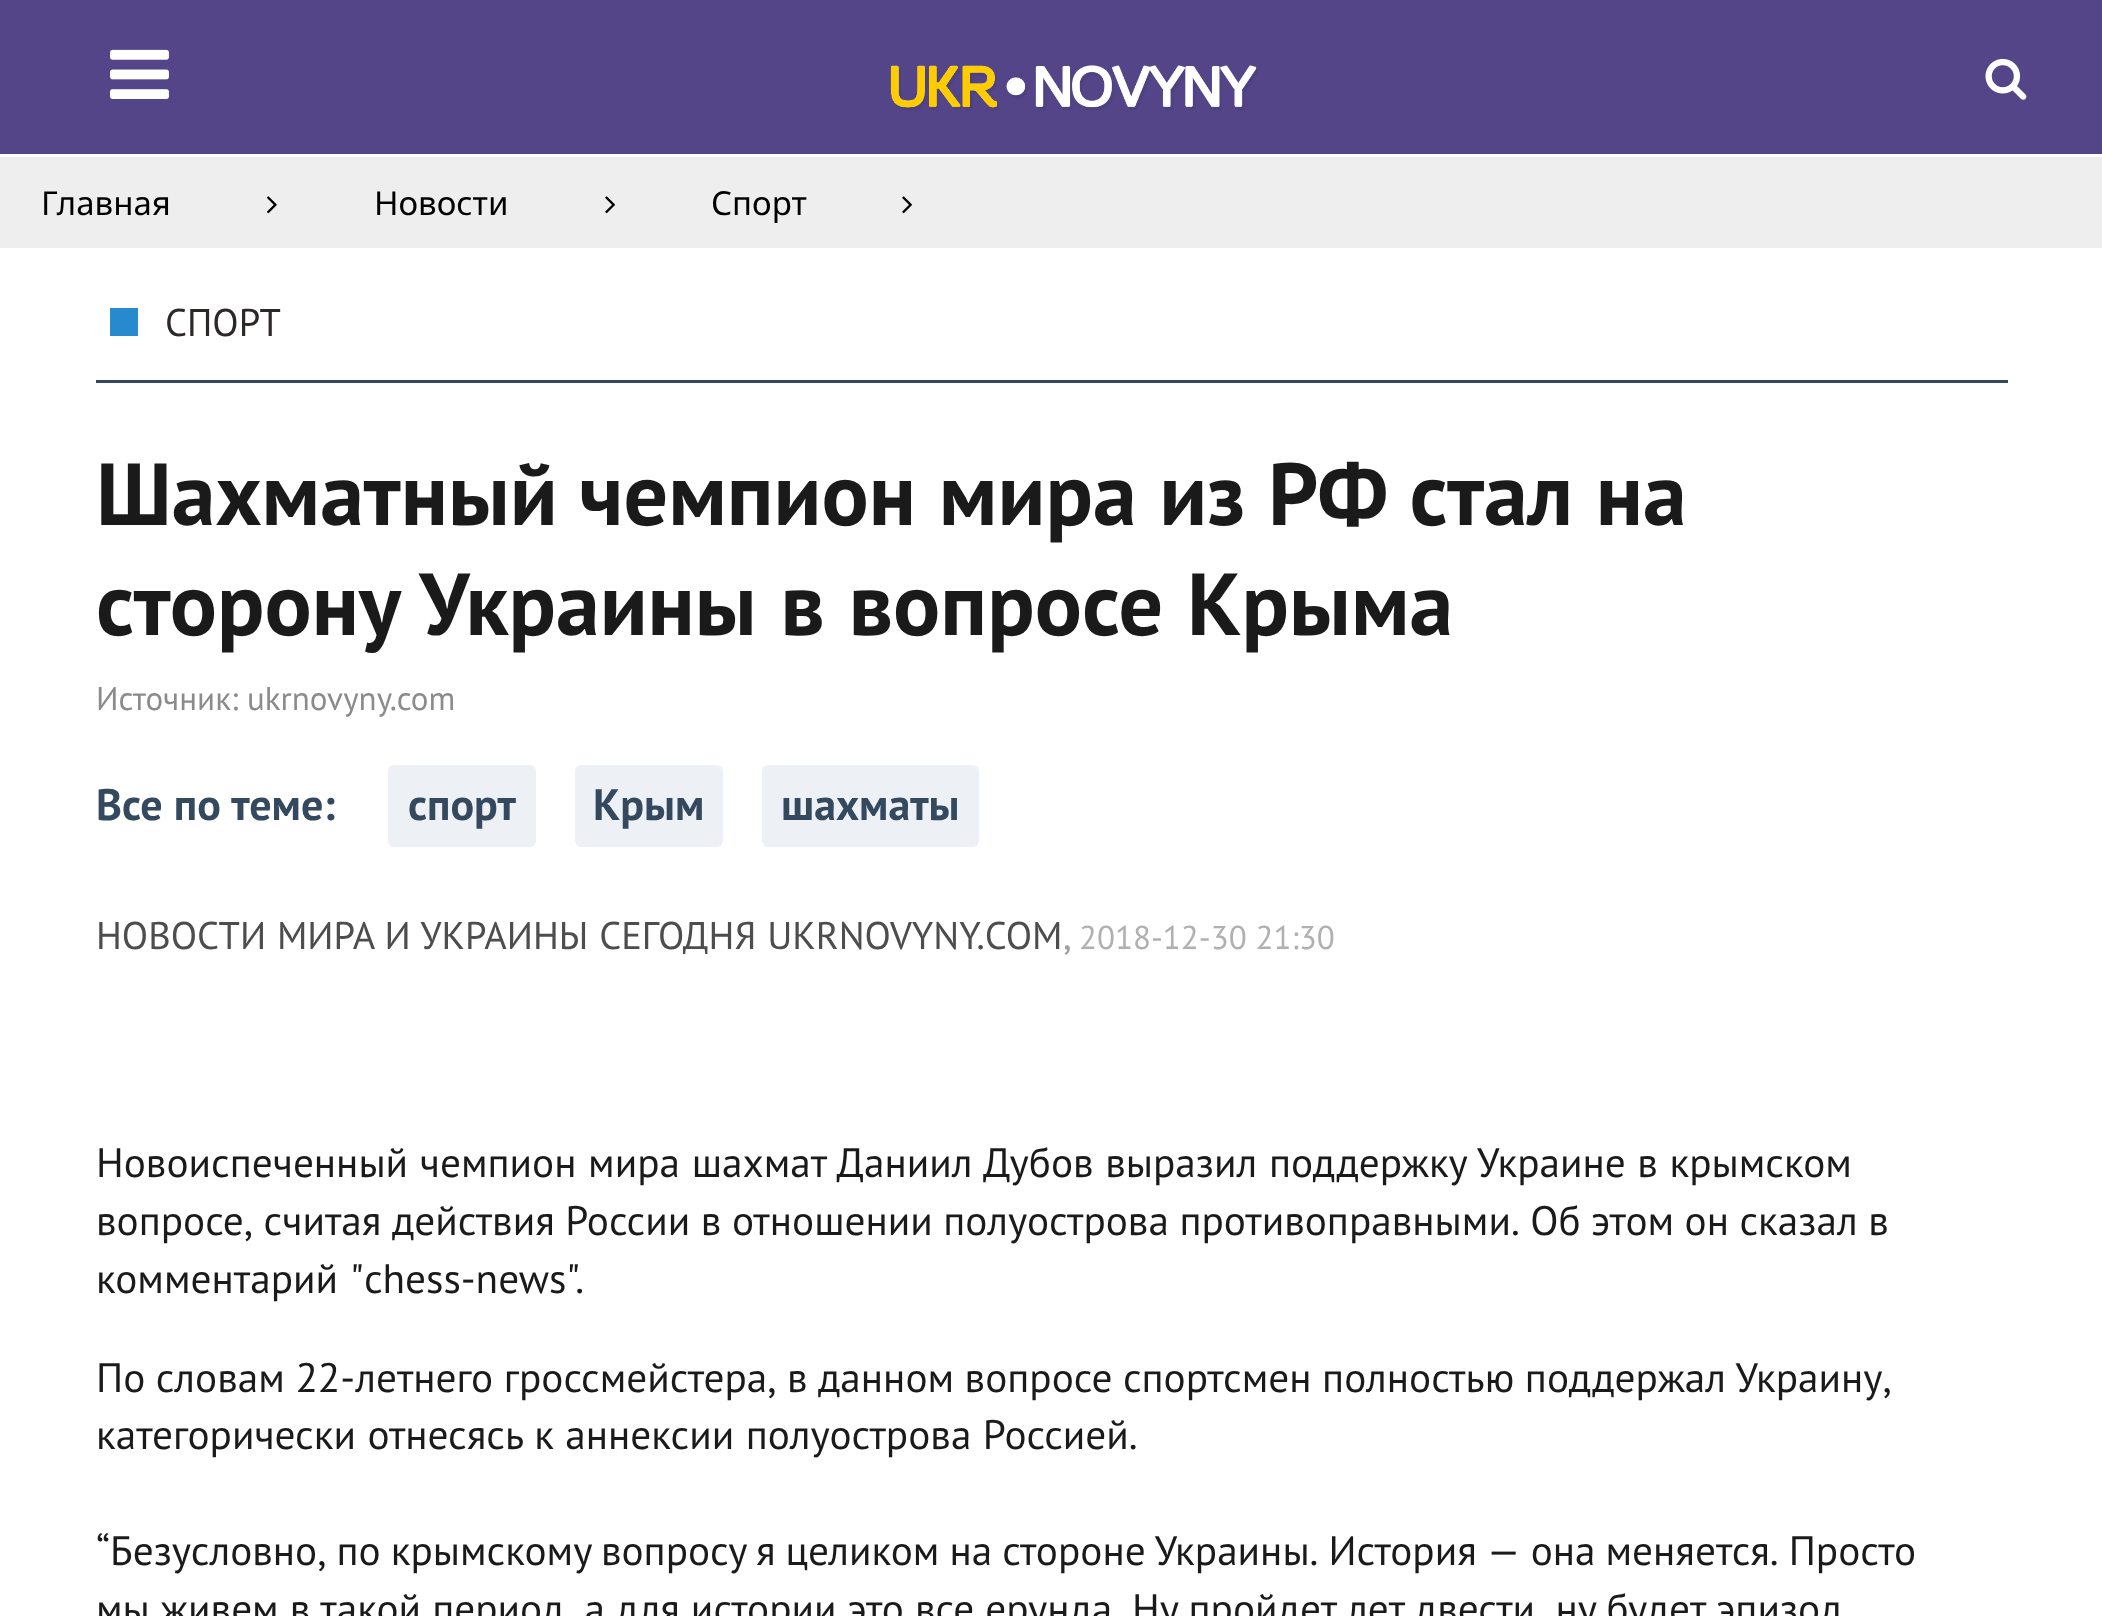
<!DOCTYPE html>
<meta charset="utf-8">
<style>body { margin: 0 } canvas { display: block }</style>
<canvas id="canvas" width="2102" height="1616"></canvas>
<img id="img1" src="images/1.png" hidden>
<img id="img2" src="images/2.png" hidden>
<img id="img3" src="images/3.png" hidden>
<img id="img4" src="images/4.png" hidden>
<img id="img5" src="images/5.png" hidden>
<script>
window.onload = function () {
    const canvas = document.getElementById('canvas');
    const context = canvas.getContext('2d');
    context.miterLimit = 4;
    context.fontKerning = 'normal';

    context.fillStyle = 'rgb(255, 255, 255)';
    context.fillRect(0, 0, 2102, 1616);
    context.fillStyle = 'rgb(83, 69, 136)';
    context.fillRect(0, 0, 2102, 154);
    context.drawImage(document.getElementById('img1'), 110, 49, 59, 50);
    context.drawImage(document.getElementById('img2'), 890, 65, 368, 46);
    context.drawImage(document.getElementById('img3'), 1985, 58, 42, 42);
    context.fillStyle = 'rgb(238, 238, 238)';
    context.fillRect(0, 157, 2102, 91);
    context.drawImage(document.getElementById('img4'), 267, 196, 10, 18);
    context.drawImage(document.getElementById('img5'), 605, 196, 10, 18);
    context.drawImage(document.getElementById('img5'), 902, 196, 10, 18);
    context.fillStyle = 'rgb(52, 73, 94)';
    context.fillRect(96, 380, 1912, 3);
    context.fillStyle = 'rgb(39, 137, 206)';
    context.fillRect(110, 308, 28, 28);
    context.fillStyle = 'rgb(237, 241, 245)';
    context.beginPath();
    context.roundRect(388, 765, 148, 82, 6);
    context.fill();
    context.beginPath();
    context.roundRect(575, 765, 148, 82, 6);
    context.fill();
    context.beginPath();
    context.roundRect(762, 765, 217, 82, 6);
    context.fill();
    context.font = '33px Noto Sans';
    context.fillStyle = 'rgb(0, 0, 0)';
    context.fillText('Главная', 41, 215);
    context.fillText('Новости', 374, 215);
    context.fillText('Спорт', 711, 215);
    context.font = '38.5px PT Sans';
    context.fillStyle = 'rgb(43, 40, 39)';
    context.fillText('СПОРТ', 165, 336);
    context.wordSpacing = '0.5px';
    context.font = 'bold 88px PT Sans';
    context.fillStyle = 'rgb(27, 26, 26)';
    context.fillText('Шахматный чемпион мира из РФ стал на', 96, 525);
    context.wordSpacing = '1.5px';
    context.fillText('сторону Украины в вопросе Крыма', 96, 635);
    context.wordSpacing = '0px';
    context.font = '33px PT Sans';
    context.fillStyle = 'rgb(139, 139, 139)';
    context.fillText('Источник: ukrnovyny.com', 96, 710);
    context.font = 'bold 44px PT Sans';
    context.fillStyle = 'rgb(52, 73, 94)';
    context.fillText('Все по теме:', 96, 820);
    context.fillText('спорт', 408, 820);
    context.fillText('Крым', 593, 820);
    context.fillText('шахматы', 781, 820);
    context.wordSpacing = '0.5px';
    context.font = '38.5px PT Sans';
    context.fillStyle = 'rgb(77, 77, 77)';
    context.fillText('НОВОСТИ МИРА И УКРАИНЫ СЕГОДНЯ UKRNOVYNY.COM', 96, 949);
    context.wordSpacing = '0px';
    context.fillStyle = 'rgb(159, 158, 158)';
    context.fillText(',', 1063, 949);
    context.font = '33px PT Sans';
    context.fillStyle = 'rgb(176, 176, 176)';
    context.fillText('2018-12-30 21:30', 1079, 949);
    context.wordSpacing = '0.6px';
    context.font = '41.25px PT Sans';
    context.fillStyle = 'rgb(27, 26, 26)';
    context.fillText('Новоиспеченный чемпион мира шахмат Даниил Дубов выразил поддержку Украине в крымском', 96, 1177);
    context.wordSpacing = '-0.5px';
    context.fillText('вопросе, считая действия России в отношении полуострова противоправными. Об этом он сказал в', 96, 1235);
    context.wordSpacing = '1px';
    context.fillText('комментарий "chess-news".', 96, 1293);
    context.wordSpacing = '-0.5px';
    context.fillText('По словам 22-летнего гроссмейстера, в данном вопросе спортсмен полностью поддержал Украину,', 96, 1392);
    context.wordSpacing = '0.5px';
    context.fillText('категорически отнесясь к аннексии полуострова Россией.', 96, 1449);
    context.wordSpacing = '-1px';
    context.fillText('“Безусловно, по крымскому вопросу я целиком на стороне Украины. История — она меняется. Просто', 96, 1565);
    context.wordSpacing = '0px';
    context.fillText('мы живем в такой период, а для истории это все ерунда. Ну пройдет лет двести, ну будет эпизод', 96, 1623);
};
</script>
